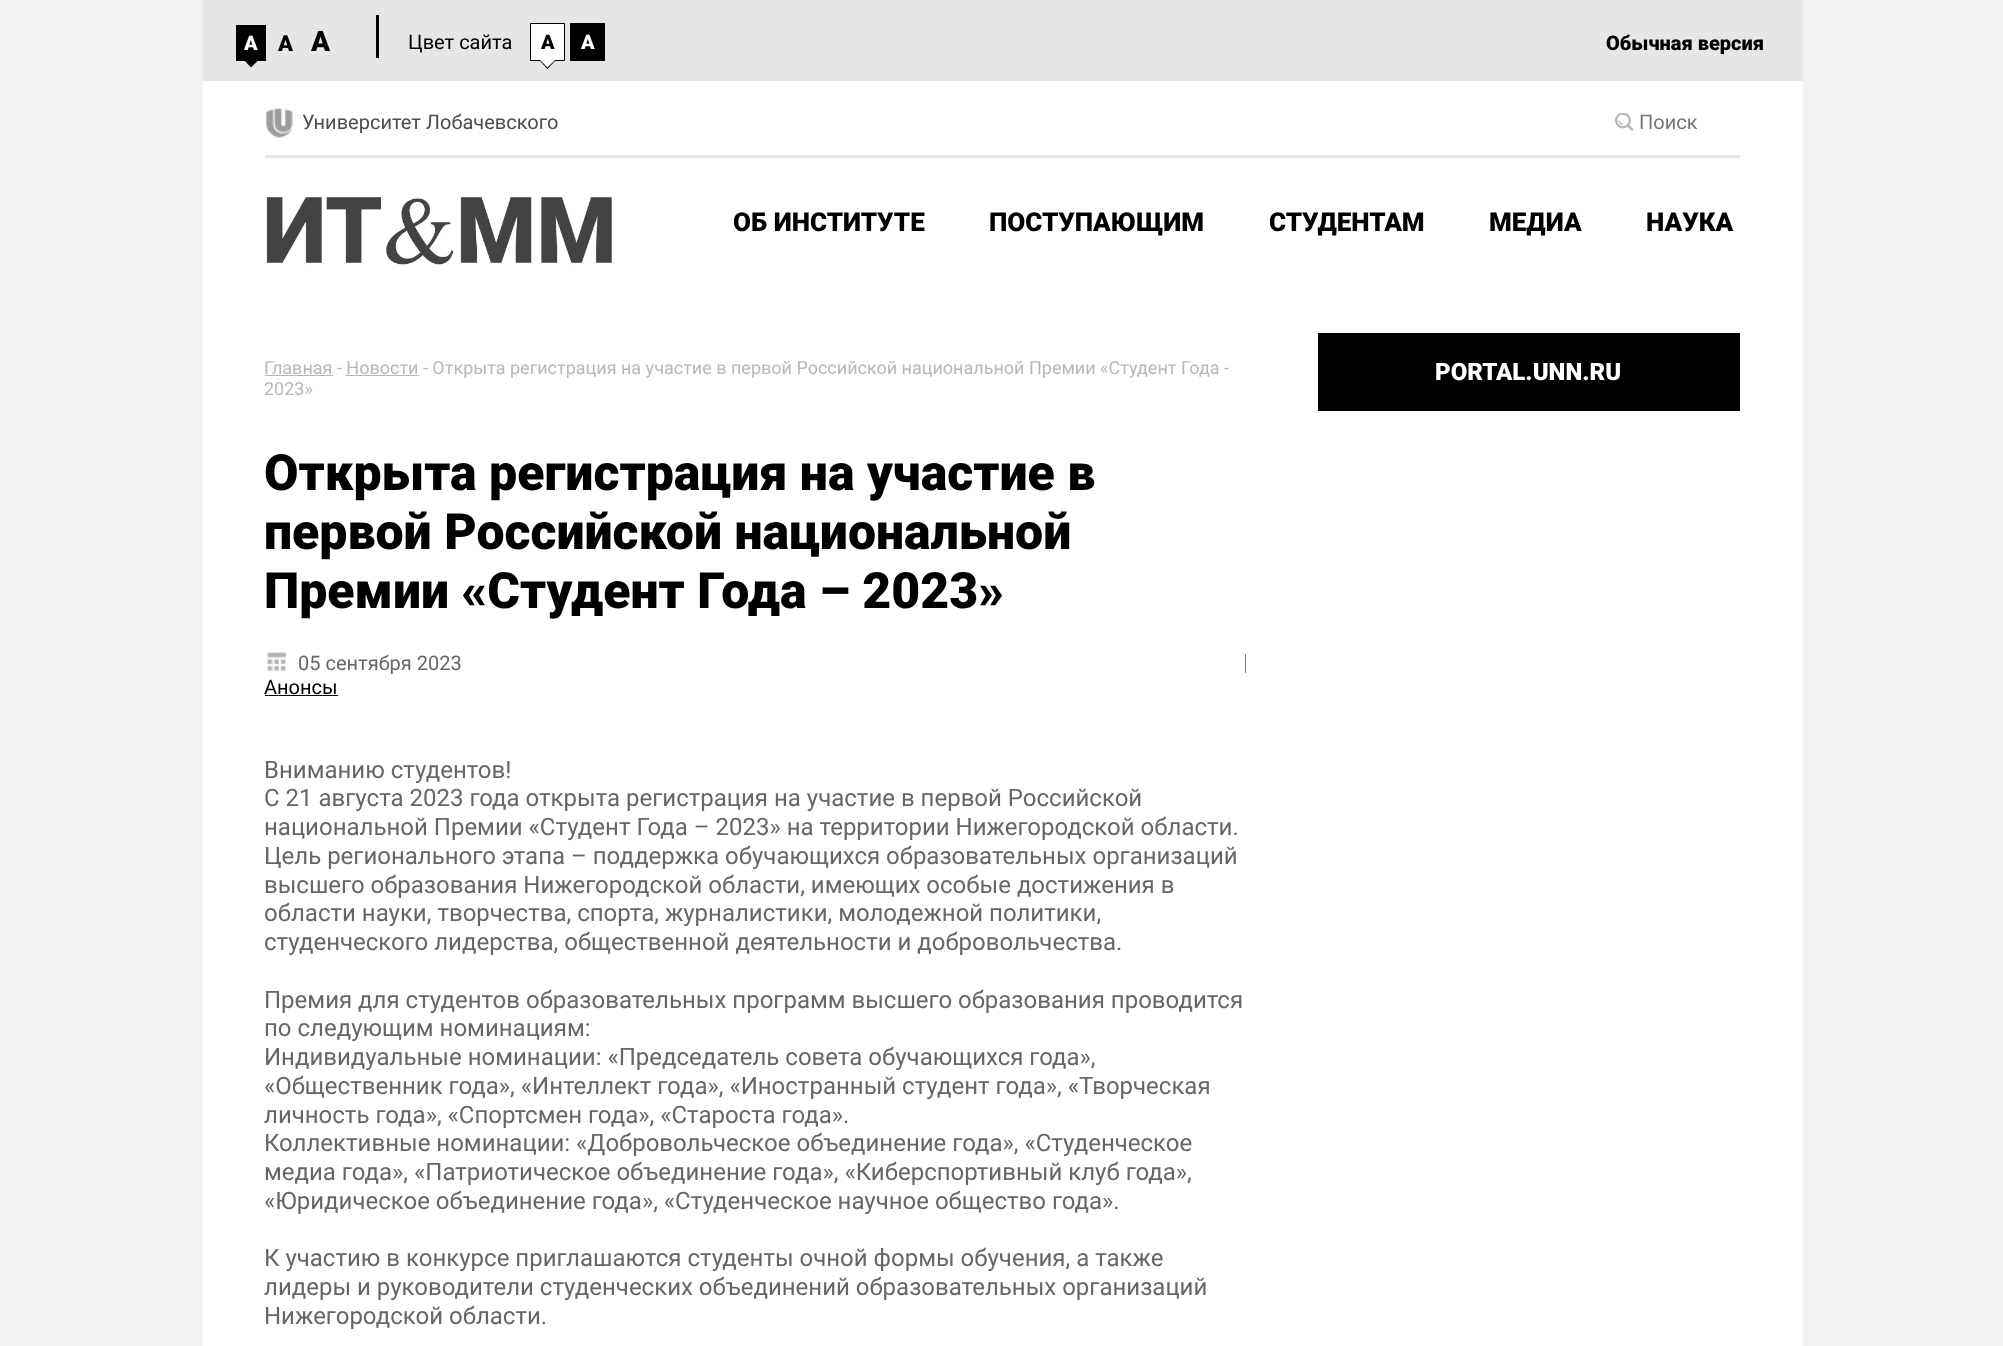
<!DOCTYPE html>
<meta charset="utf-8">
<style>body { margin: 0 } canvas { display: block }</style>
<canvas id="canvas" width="2003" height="1346"></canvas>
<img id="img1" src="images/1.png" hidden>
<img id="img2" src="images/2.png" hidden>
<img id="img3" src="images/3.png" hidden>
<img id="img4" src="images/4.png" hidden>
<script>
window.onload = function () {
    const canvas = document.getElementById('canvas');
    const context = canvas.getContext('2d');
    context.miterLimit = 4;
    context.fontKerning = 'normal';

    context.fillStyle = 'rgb(242, 242, 242)';
    context.fillRect(0, 0, 2003, 1346);
    context.fillStyle = 'rgb(230, 230, 230)';
    context.fillRect(203, 0, 1600, 81);
    context.fillStyle = 'rgb(0, 0, 0)';
    context.fillRect(236, 25, 30, 36);
    context.beginPath();
    context.moveTo(245, 61);
    context.lineTo(257.5, 61);
    context.lineTo(251, 67.5);
    context.closePath();
    context.fill();
    context.fillRect(376, 15, 3, 43);
    context.fillStyle = 'rgb(255, 255, 255)';
    context.beginPath();
    context.rect(530.5, 23.5, 34, 37);
    context.fill();
    context.strokeStyle = 'rgb(0, 0, 0)';
    context.stroke();
    context.fillStyle = 'rgb(0, 0, 0)';
    context.beginPath();
    context.moveTo(540, 61);
    context.lineTo(555, 61);
    context.lineTo(547.5, 69);
    context.closePath();
    context.fill();
    context.fillStyle = 'rgb(255, 255, 255)';
    context.beginPath();
    context.moveTo(540, 60);
    context.lineTo(555, 60);
    context.lineTo(547.5, 67.5);
    context.closePath();
    context.fill();
    context.fillStyle = 'rgb(0, 0, 0)';
    context.fillRect(570, 23, 35, 38);
    context.fillStyle = 'rgb(255, 255, 255)';
    context.fillRect(203, 81, 1600, 252);
    context.fillStyle = 'rgb(230, 230, 230)';
    context.fillRect(265, 155, 1475, 3);
    context.drawImage(document.getElementById('img1'), 266, 108, 27, 30);
    context.drawImage(document.getElementById('img2'), 1615, 113, 19, 18);
    context.drawImage(document.getElementById('img3'), 266, 197, 346, 68);
    context.fillStyle = 'rgb(255, 255, 255)';
    context.fillRect(203, 333, 1600, 1013);
    context.fillStyle = 'rgb(183, 183, 183)';
    context.fillRect(265, 375, 68, 1);
    context.fillRect(346, 375, 73, 1);
    context.drawImage(document.getElementById('img4'), 267, 652, 20, 20);
    context.fillStyle = 'rgb(128, 128, 128)';
    context.fillRect(1245, 654, 1, 19);
    context.fillStyle = 'rgb(0, 0, 0)';
    context.fillRect(265, 695, 73, 1);
    context.fillRect(1318, 333, 422, 78);
    context.font = '900 20px Roboto';
    context.fillStyle = 'rgb(255, 255, 255)';
    context.fillText('A', 244, 50);
    context.font = '900 22px Roboto';
    context.fillStyle = 'rgb(0, 0, 0)';
    context.fillText('A', 278, 51);
    context.font = '900 28px Roboto';
    context.fillText('A', 311, 51);
    context.font = '20px Roboto';
    context.fillText('Цвет сайта', 408, 49);
    context.font = '900 20px Roboto';
    context.fillText('A', 541, 49);
    context.fillStyle = 'rgb(255, 255, 255)';
    context.fillText('A', 581, 49);
    context.fillStyle = 'rgb(0, 0, 0)';
    context.fillText('Обычная версия', 1606, 50);
    context.font = '20px Roboto';
    context.fillStyle = 'rgb(77, 77, 77)';
    context.fillText('Университет Лобачевского', 302, 129);
    context.fillStyle = 'rgb(117, 117, 117)';
    context.fillText('Поиск', 1639, 129);
    context.font = '900 26px Roboto';
    context.fillStyle = 'rgb(0, 0, 0)';
    context.fillText('ОБ ИНСТИТУТЕ', 733, 231);
    context.fillText('ПОСТУПАЮЩИМ', 989, 231);
    context.fillText('СТУДЕНТАМ', 1269, 231);
    context.fillText('МЕДИА', 1489, 231);
    context.fillText('НАУКА', 1646, 231);
    context.font = '18px Roboto';
    context.fillStyle = 'rgb(183, 183, 183)';
    context.fillText('Главная - Новости - Открыта регистрация на участие в первой Российской национальной Премии «Студент Года -', 264, 374);
    context.fillText('2023»', 264, 395);
    context.font = '900 50px Roboto';
    context.fillStyle = 'rgb(0, 0, 0)';
    context.fillText('Открыта регистрация на участие в', 264, 490);
    context.fillText('первой Российской национальной', 264, 549);
    context.fillText('Премии «Студент Года – 2023»', 264, 608);
    context.font = '20px Roboto';
    context.fillStyle = 'rgb(102, 102, 102)';
    context.fillText('05 сентября 2023', 298, 670);
    context.fillStyle = 'rgb(0, 0, 0)';
    context.fillText('Анонсы', 264, 694);
    context.font = '24px Roboto';
    context.fillStyle = 'rgb(102, 102, 102)';
    context.fillText('Вниманию студентов!', 264, 778);
    context.fillText('С 21 августа 2023 года открыта регистрация на участие в первой Российской', 264, 806);
    context.fillText('национальной Премии «Студент Года – 2023» на территории Нижегородской области.', 264, 835);
    context.fillText('Цель регионального этапа – поддержка обучающихся образовательных организаций', 264, 864);
    context.fillText('высшего образования Нижегородской области, имеющих особые достижения в', 264, 893);
    context.fillText('области науки, творчества, спорта, журналистики, молодежной политики,', 264, 921);
    context.fillText('студенческого лидерства, общественной деятельности и добровольчества.', 264, 950);
    context.fillText('Премия для студентов образовательных программ высшего образования проводится', 264, 1008);
    context.fillText('по следующим номинациям:', 264, 1036);
    context.fillText('Индивидуальные номинации: «Председатель совета обучающихся года»,', 264, 1065);
    context.fillText('«Общественник года», «Интеллект года», «Иностранный студент года», «Творческая', 264, 1094);
    context.fillText('личность года», «Спортсмен года», «Староста года».', 264, 1123);
    context.fillText('Коллективные номинации: «Добровольческое объединение года», «Студенческое', 264, 1151);
    context.fillText('медиа года», «Патриотическое объединение года», «Киберспортивный клуб года»,', 264, 1180);
    context.fillText('«Юридическое объединение года», «Студенческое научное общество года».', 264, 1209);
    context.fillText('К участию в конкурсе приглашаются студенты очной формы обучения, а также', 264, 1266);
    context.fillText('лидеры и руководители студенческих объединений образовательных организаций', 264, 1295);
    context.fillText('Нижегородской области.', 264, 1324);
    context.font = '900 24px Roboto';
    context.fillStyle = 'rgb(255, 255, 255)';
    context.fillText('PORTAL.UNN.RU', 1435, 380);
};
</script>
